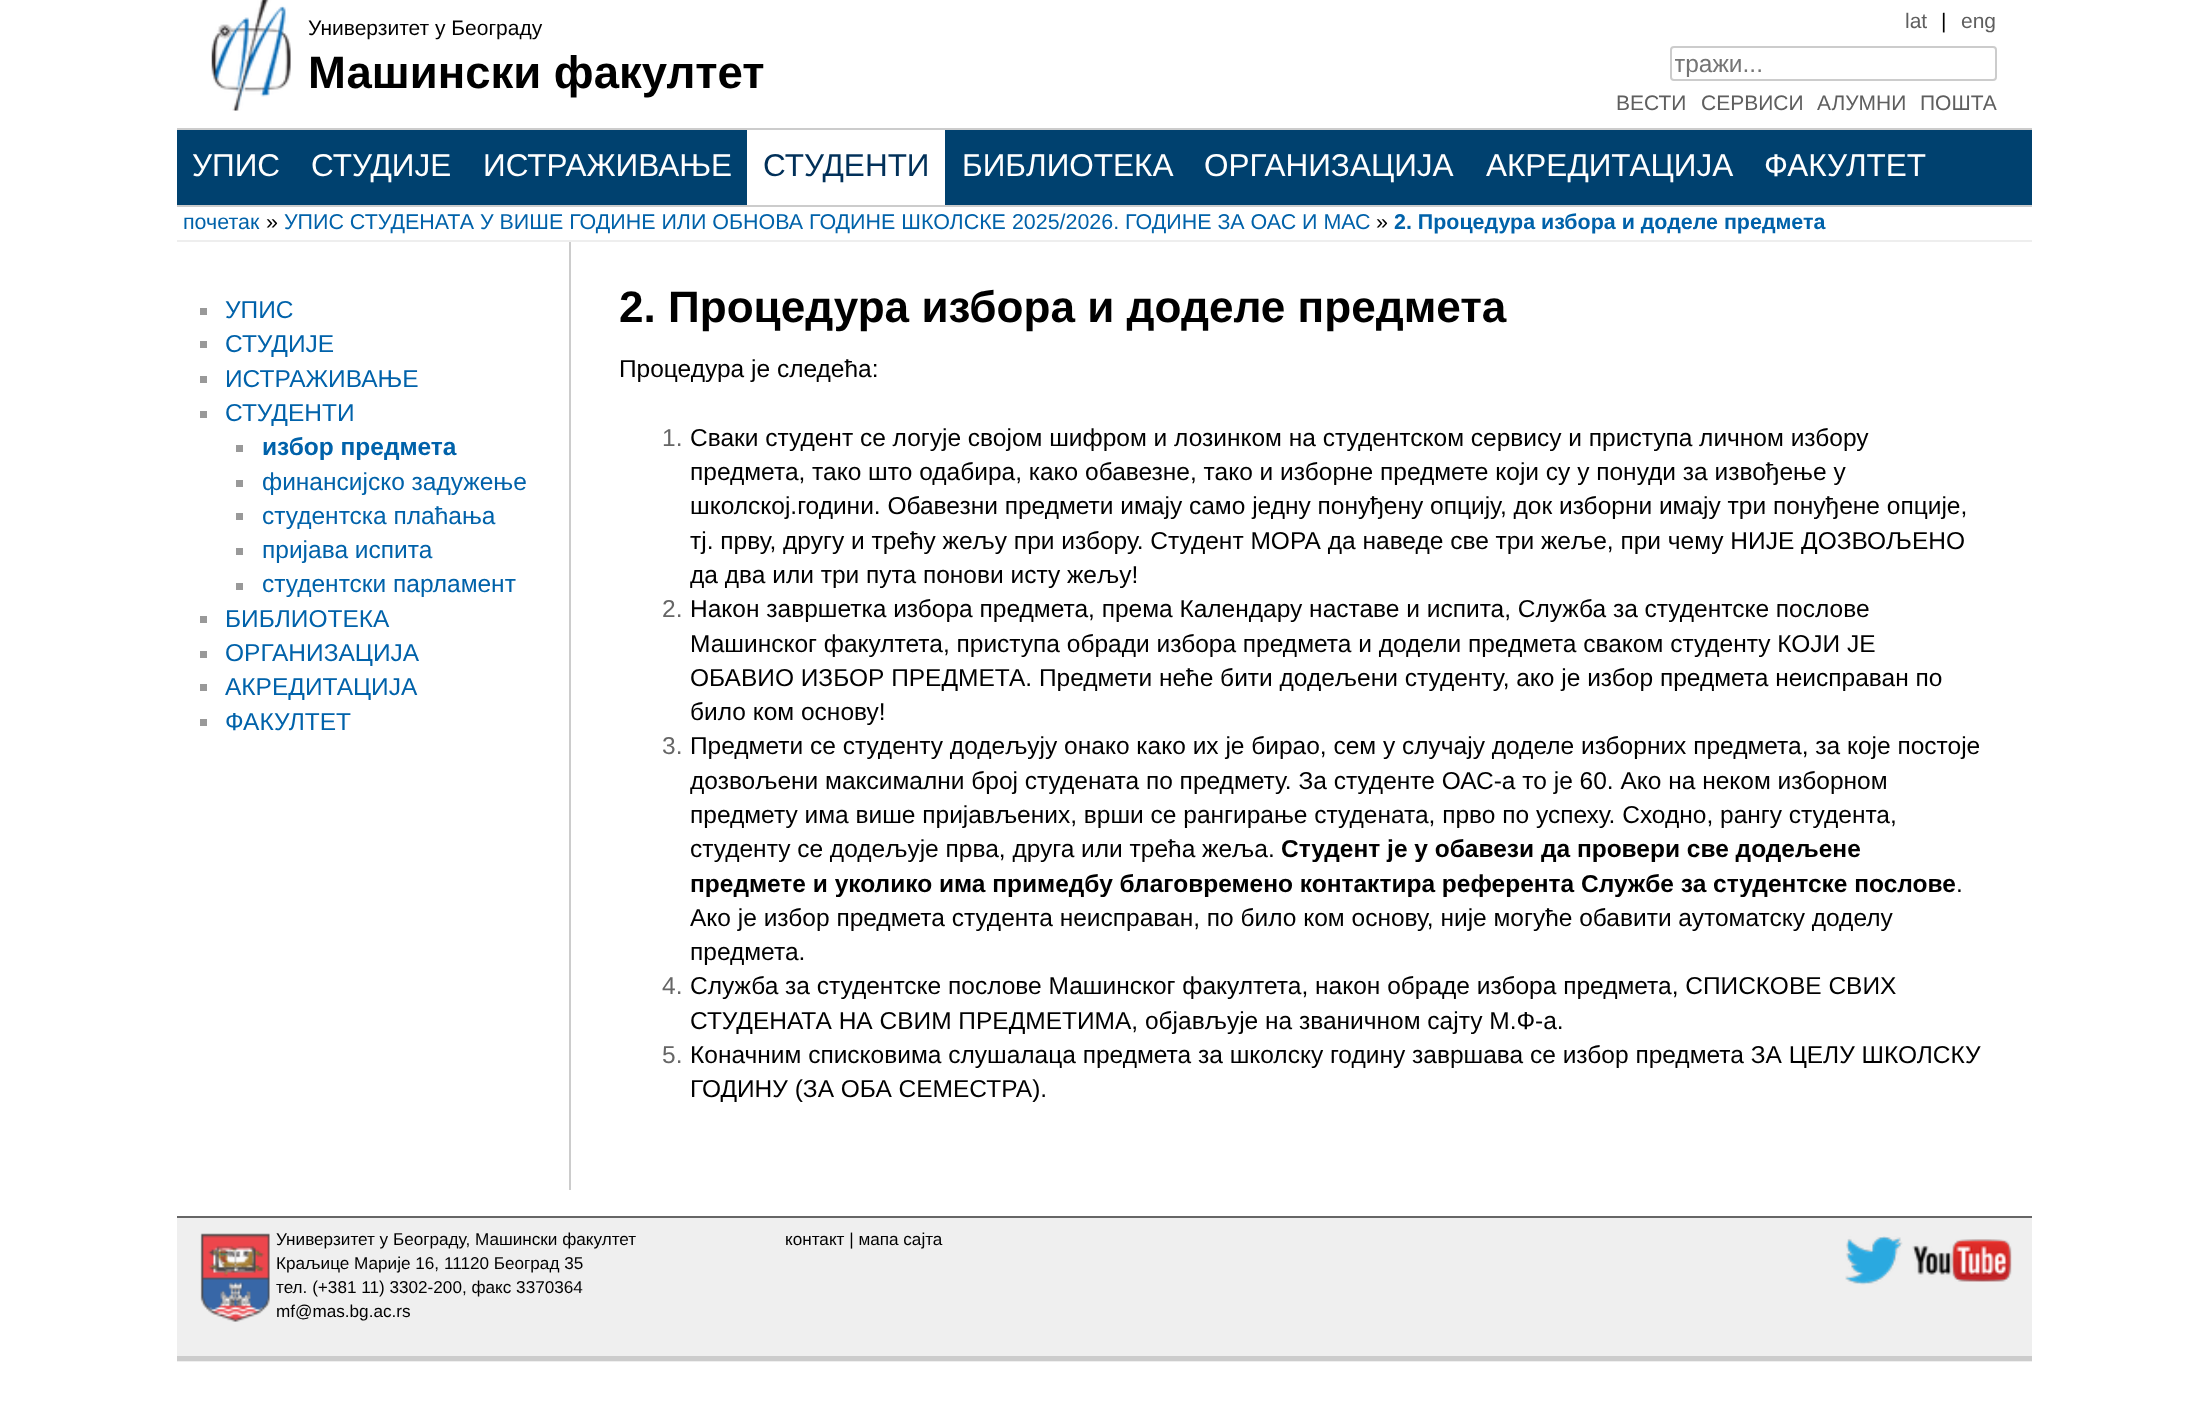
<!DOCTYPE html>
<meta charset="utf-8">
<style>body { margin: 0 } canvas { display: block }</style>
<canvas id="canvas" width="2206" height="1409"></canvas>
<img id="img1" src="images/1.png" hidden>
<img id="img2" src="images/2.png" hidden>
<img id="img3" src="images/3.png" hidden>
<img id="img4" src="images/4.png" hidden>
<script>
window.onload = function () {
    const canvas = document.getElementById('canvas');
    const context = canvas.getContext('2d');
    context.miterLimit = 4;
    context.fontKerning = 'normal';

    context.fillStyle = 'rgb(255, 255, 255)';
    context.fillRect(0, 0, 2206, 1409);
    context.drawImage(document.getElementById('img1'), 211, 0, 80, 111);
    context.beginPath();
    context.roundRect(1671, 47, 325, 33, 3);
    context.strokeStyle = 'rgb(204, 204, 204)';
    context.lineWidth = 2;
    context.stroke();
    context.fillStyle = 'rgb(204, 204, 204)';
    context.fillRect(177, 128, 1855, 2);
    context.fillStyle = 'rgb(0, 65, 111)';
    context.fillRect(177, 130, 1855, 75);
    context.fillStyle = 'rgb(255, 255, 255)';
    context.fillRect(747, 130, 198, 75);
    context.fillStyle = 'rgb(204, 204, 204)';
    context.fillRect(177, 205, 1855, 2);
    context.fillStyle = 'rgb(238, 238, 238)';
    context.fillRect(177, 240, 1855, 2);
    context.fillStyle = 'rgb(153, 153, 153)';
    context.fillRect(200, 308, 7, 7);
    context.fillRect(200, 341, 7, 7);
    context.fillRect(200, 376, 7, 7);
    context.fillRect(200, 411, 7, 7);
    context.fillRect(236, 445, 7, 7);
    context.fillRect(236, 480, 7, 7);
    context.fillRect(236, 513, 7, 7);
    context.fillRect(236, 548, 7, 7);
    context.fillRect(236, 583, 7, 7);
    context.fillRect(200, 616, 7, 7);
    context.fillRect(200, 651, 7, 7);
    context.fillRect(200, 684, 7, 7);
    context.fillRect(200, 719, 7, 7);
    context.fillStyle = 'rgb(204, 204, 204)';
    context.fillRect(569, 242, 2, 948);
    context.fillStyle = 'rgb(239, 239, 239)';
    context.fillRect(177, 1218, 1855, 144);
    context.fillStyle = 'rgb(102, 102, 102)';
    context.fillRect(177, 1216, 1855, 2);
    context.fillStyle = 'rgb(204, 204, 204)';
    context.fillRect(177, 1356, 1855, 5);
    context.drawImage(document.getElementById('img2'), 200, 1233, 70, 89);
    context.drawImage(document.getElementById('img3'), 1845, 1236, 58, 49);
    context.drawImage(document.getElementById('img4'), 1912, 1239, 100, 43);
    context.font = '21px Liberation Sans';
    context.fillStyle = 'rgb(0, 0, 0)';
    context.fillText('Универзитет у Београду', 308, 35);
    context.font = 'bold 45.5px Liberation Sans';
    context.fillText('Машински факултет', 308, 88);
    context.font = '21px Liberation Sans';
    context.fillStyle = 'rgb(95, 95, 95)';
    context.fillText('lat', 1905, 28);
    context.fillStyle = 'rgb(0, 0, 0)';
    context.fillText('|', 1941, 28);
    context.fillStyle = 'rgb(95, 95, 95)';
    context.fillText('eng', 1961, 28);
    context.save();
    context.beginPath();
    context.rect(1675, 49, 317, 28);
    context.clip();
    context.font = '24.5px Liberation Sans';
    context.fillStyle = 'rgb(117, 117, 117)';
    context.fillText('тражи...', 1674, 72);
    context.restore();
    context.fillText('ВЕСТИ', 1616, 110);
    context.fillText('СЕРВИСИ', 1701, 110);
    context.fillText('АЛУМНИ', 1817, 110);
    context.fillText('ПОШТА', 1920, 110);
    context.font = '31.5px Liberation Sans';
    context.fillStyle = 'rgb(255, 255, 255)';
    context.fillText('УПИС', 192, 176);
    context.fillText('СТУДИЈЕ', 311, 176);
    context.fillText('ИСТРАЖИВАЊЕ', 483, 176);
    context.fillStyle = 'rgb(1, 48, 89)';
    context.fillText('СТУДЕНТИ', 763, 176);
    context.fillStyle = 'rgb(255, 255, 255)';
    context.fillText('БИБЛИОТЕКА', 962, 176);
    context.fillText('ОРГАНИЗАЦИЈА', 1204, 176);
    context.fillText('АКРЕДИТАЦИЈА', 1486, 176);
    context.fillText('ФАКУЛТЕТ', 1764, 176);
    context.font = '21.45px Liberation Sans';
    context.fillStyle = 'rgb(0, 98, 170)';
    context.fillText('почетак', 183, 229);
    context.fillStyle = 'rgb(0, 0, 0)';
    context.fillText('»', 266, 229);
    context.fillStyle = 'rgb(0, 98, 170)';
    context.fillText('УПИС СТУДЕНАТА У ВИШЕ ГОДИНЕ ИЛИ ОБНОВА ГОДИНЕ ШКОЛСКЕ 2025/2026. ГОДИНЕ ЗА ОАС И МАС', 284, 229);
    context.fillStyle = 'rgb(0, 0, 0)';
    context.fillText('»', 1376, 229);
    context.font = 'bold 21.45px Liberation Sans';
    context.fillStyle = 'rgb(0, 98, 170)';
    context.fillText('2. Процедура избора и доделе предмета', 1394, 229);
    context.font = '24.5px Liberation Sans';
    context.fillText('УПИС', 225, 318);
    context.fillText('СТУДИЈЕ', 225, 352);
    context.fillText('ИСТРАЖИВАЊЕ', 225, 387);
    context.fillText('СТУДЕНТИ', 225, 421);
    context.font = 'bold 24.5px Liberation Sans';
    context.fillText('избор предмета', 262, 455);
    context.font = '24.5px Liberation Sans';
    context.fillText('финансијско задужење', 262, 490);
    context.fillText('студентска плаћања', 262, 524);
    context.fillText('пријава испита', 262, 558);
    context.fillText('студентски парламент', 262, 592);
    context.fillText('БИБЛИОТЕКА', 225, 627);
    context.fillText('ОРГАНИЗАЦИЈА', 225, 661);
    context.fillText('АКРЕДИТАЦИЈА', 225, 695);
    context.fillText('ФАКУЛТЕТ', 225, 730);
    context.font = 'bold 44.1px Liberation Sans';
    context.fillStyle = 'rgb(0, 0, 0)';
    context.fillText('2. Процедура избора и доделе предмета', 619, 322);
    context.font = '24.5px Liberation Sans';
    context.fillText('Процедура је следећа:', 619, 377);
    context.fillStyle = 'rgb(102, 102, 102)';
    context.fillText('1.', 662, 446);
    context.fillStyle = 'rgb(0, 0, 0)';
    context.fillText('Сваки студент се логује својом шифром и лозинком на студентском сервису и приступа личном избору', 690, 446);
    context.fillText('предмета, тако што одабира, како обавезне, тако и изборне предмете који су у понуди за извођење у', 690, 480);
    context.fillText('школској.години. Обавезни предмети имају само једну понуђену опцију, док изборни имају три понуђене опције,', 690, 514);
    context.fillText('тј. прву, другу и трећу жељу при избору. Студент МОРА да наведе све три жеље, при чему НИЈЕ ДОЗВОЉЕНО', 690, 549);
    context.fillText('да два или три пута понови исту жељу!', 690, 583);
    context.fillStyle = 'rgb(102, 102, 102)';
    context.fillText('2.', 662, 617);
    context.fillStyle = 'rgb(0, 0, 0)';
    context.fillText('Након завршетка избора предмета, према Календару наставе и испита, Служба за студентске послове', 690, 617);
    context.fillText('Машинског факултета, приступа обради избора предмета и додели предмета сваком студенту КОЈИ ЈЕ', 690, 652);
    context.fillText('ОБАВИО ИЗБОР ПРЕДМЕТА. Предмети неће бити додељени студенту, ако је избор предмета неисправан по', 690, 686);
    context.fillText('било ком основу!', 690, 720);
    context.fillStyle = 'rgb(102, 102, 102)';
    context.fillText('3.', 662, 754);
    context.fillStyle = 'rgb(0, 0, 0)';
    context.fillText('Предмети се студенту додељују онако како их је бирао, сем у случају доделе изборних предмета, за које постоје', 690, 754);
    context.fillText('дозвољени максимални број студената по предмету. За студенте ОАС-а то је 60. Ако на неком изборном', 690, 789);
    context.fillText('предмету има више пријављених, врши се рангирање студената, прво по успеху. Сходно, рангу студента,', 690, 823);
    context.fillText('студенту се додељује прва, друга или трећа жеља.', 690, 857);
    context.font = 'bold 24.5px Liberation Sans';
    context.fillText('Студент је у обавези да провери све додељене', 1281, 857);
    context.fillText('предмете и уколико има примедбу благовремено контактира референта Службе за студентске послове', 690, 892);
    context.font = '24.5px Liberation Sans';
    context.fillText('.', 1956, 892);
    context.fillText('Ако је избор предмета студента неисправан, по било ком основу, није могуће обавити аутоматску доделу', 690, 926);
    context.fillText('предмета.', 690, 960);
    context.fillStyle = 'rgb(102, 102, 102)';
    context.fillText('4.', 662, 994);
    context.fillStyle = 'rgb(0, 0, 0)';
    context.fillText('Служба за студентске послове Машинског факултета, након обраде избора предмета, СПИСКОВЕ СВИХ', 690, 994);
    context.fillText('СТУДЕНАТА НА СВИМ ПРЕДМЕТИМА, објављује на званичном сајту М.Ф-а.', 690, 1029);
    context.fillStyle = 'rgb(102, 102, 102)';
    context.fillText('5.', 662, 1063);
    context.fillStyle = 'rgb(0, 0, 0)';
    context.fillText('Коначним списковима слушалаца предмета за школску годину завршава се избор предмета ЗА ЦЕЛУ ШКОЛСКУ', 690, 1063);
    context.fillText('ГОДИНУ (ЗА ОБА СЕМЕСТРА).', 690, 1097);
    context.font = '17.15px Liberation Sans';
    context.fillText('Универзитет у Београду, Машински факултет', 276, 1245);
    context.fillText('Краљице Марије 16, 11120 Београд 35', 276, 1269);
    context.fillText('тел. (+381 11) 3302-200, факс 3370364', 276, 1293);
    context.fillText('mf@mas.bg.ac.rs', 276, 1317);
    context.fillText('контакт | мапа сајта', 785, 1245);
};
</script>
